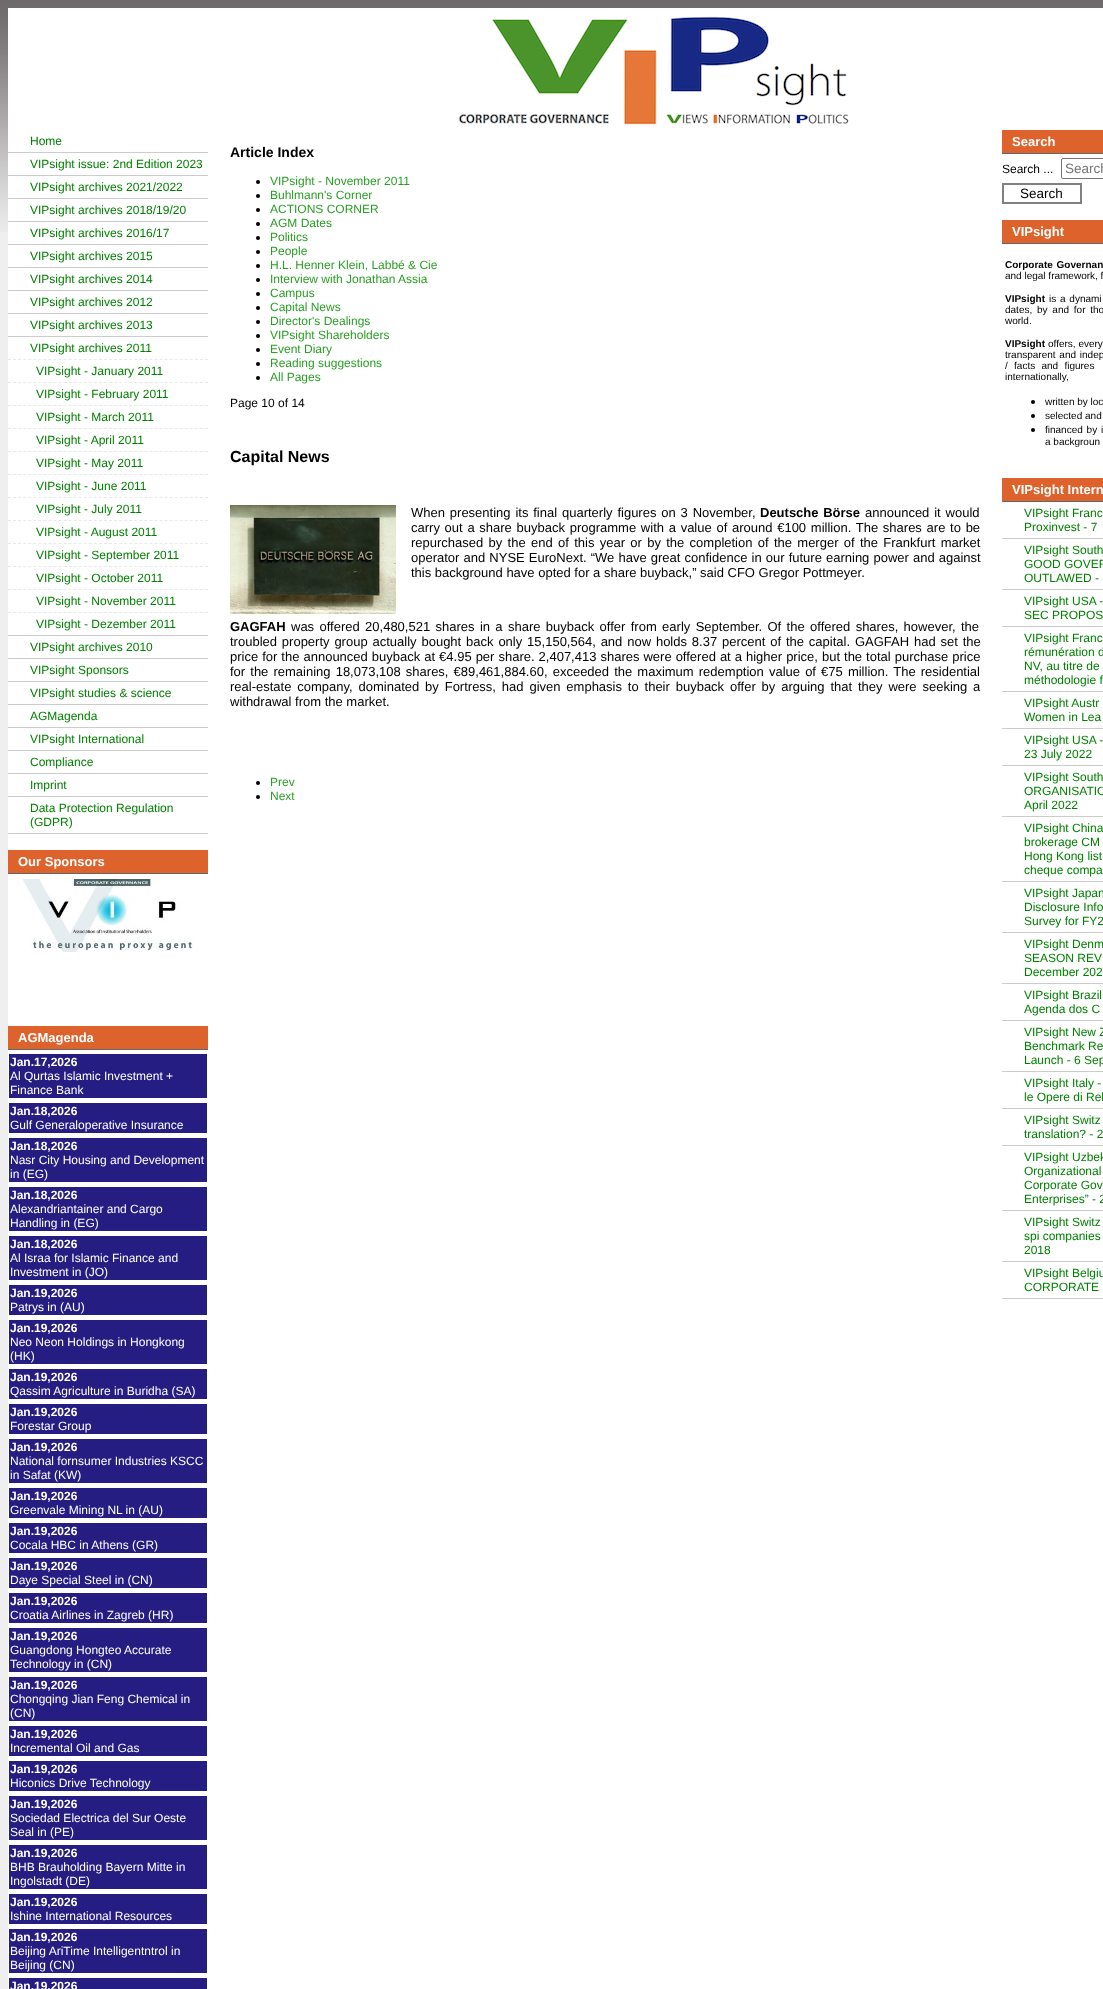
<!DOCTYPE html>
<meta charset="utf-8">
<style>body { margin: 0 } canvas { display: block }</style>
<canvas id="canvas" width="1103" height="1989"></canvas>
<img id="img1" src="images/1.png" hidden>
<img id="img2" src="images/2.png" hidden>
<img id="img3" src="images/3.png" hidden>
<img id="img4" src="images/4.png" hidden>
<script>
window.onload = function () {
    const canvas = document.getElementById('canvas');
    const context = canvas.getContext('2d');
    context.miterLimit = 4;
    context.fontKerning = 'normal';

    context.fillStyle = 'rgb(239, 239, 239)';
    context.fillRect(0, 0, 1103, 1989);
    context.drawImage(document.getElementById('img1'), 0, 0, 1103, 232);
    context.fillStyle = 'rgb(255, 255, 255)';
    context.fillRect(8, 8, 1095, 1981);
    context.drawImage(document.getElementById('img2'), 458, 16, 391, 111);
    context.fillStyle = 'rgb(204, 204, 204)';
    context.fillRect(8, 152, 200, 1);
    context.fillRect(8, 175, 200, 1);
    context.fillRect(8, 198, 200, 1);
    context.fillRect(8, 221, 200, 1);
    context.fillRect(8, 244, 200, 1);
    context.fillRect(8, 267, 200, 1);
    context.fillRect(8, 290, 200, 1);
    context.fillRect(8, 313, 200, 1);
    context.fillRect(8, 336, 200, 1);
    context.fillRect(8, 635, 200, 1);
    context.beginPath();
    context.moveTo(8, 359.5);
    context.lineTo(208, 359.5);
    context.strokeStyle = 'rgb(233, 233, 233)';
    context.setLineDash([3, 2.05]);
    context.stroke();
    context.beginPath();
    context.moveTo(8, 382.5);
    context.lineTo(208, 382.5);
    context.stroke();
    context.beginPath();
    context.moveTo(8, 405.5);
    context.lineTo(208, 405.5);
    context.stroke();
    context.beginPath();
    context.moveTo(8, 428.5);
    context.lineTo(208, 428.5);
    context.stroke();
    context.beginPath();
    context.moveTo(8, 451.5);
    context.lineTo(208, 451.5);
    context.stroke();
    context.beginPath();
    context.moveTo(8, 474.5);
    context.lineTo(208, 474.5);
    context.stroke();
    context.beginPath();
    context.moveTo(8, 497.5);
    context.lineTo(208, 497.5);
    context.stroke();
    context.beginPath();
    context.moveTo(8, 520.5);
    context.lineTo(208, 520.5);
    context.stroke();
    context.beginPath();
    context.moveTo(8, 543.5);
    context.lineTo(208, 543.5);
    context.stroke();
    context.beginPath();
    context.moveTo(8, 566.5);
    context.lineTo(208, 566.5);
    context.stroke();
    context.beginPath();
    context.moveTo(8, 589.5);
    context.lineTo(208, 589.5);
    context.stroke();
    context.beginPath();
    context.moveTo(8, 612.5);
    context.lineTo(208, 612.5);
    context.stroke();
    context.fillRect(8, 658, 200, 1);
    context.fillRect(8, 681, 200, 1);
    context.fillRect(8, 704, 200, 1);
    context.fillRect(8, 727, 200, 1);
    context.fillRect(8, 750, 200, 1);
    context.fillRect(8, 773, 200, 1);
    context.fillRect(8, 796, 200, 1);
    context.fillRect(8, 833, 200, 1);
    context.fillStyle = 'rgb(222, 98, 44)';
    context.fillRect(8, 850, 200, 23);
    context.fillStyle = 'rgb(102, 102, 102)';
    context.fillRect(8, 873, 200, 1);
    context.drawImage(document.getElementById('img3'), 22, 879, 171, 73);
    context.fillStyle = 'rgb(222, 98, 44)';
    context.fillRect(8, 1026, 200, 23);
    context.fillStyle = 'rgb(102, 102, 102)';
    context.fillRect(8, 1049, 200, 1);
    context.fillStyle = 'rgb(37, 29, 130)';
    context.fillRect(9, 1054, 198, 44);
    context.fillRect(9, 1103, 198, 30);
    context.fillRect(9, 1138, 198, 44);
    context.fillRect(9, 1187, 198, 44);
    context.fillRect(9, 1236, 198, 44);
    context.fillRect(9, 1285, 198, 30);
    context.fillRect(9, 1320, 198, 44);
    context.fillRect(9, 1369, 198, 30);
    context.fillRect(9, 1404, 198, 30);
    context.fillRect(9, 1439, 198, 44);
    context.fillRect(9, 1488, 198, 30);
    context.fillRect(9, 1523, 198, 30);
    context.fillRect(9, 1558, 198, 30);
    context.fillRect(9, 1593, 198, 30);
    context.fillRect(9, 1628, 198, 44);
    context.fillRect(9, 1677, 198, 44);
    context.fillRect(9, 1726, 198, 30);
    context.fillRect(9, 1761, 198, 30);
    context.fillRect(9, 1796, 198, 44);
    context.fillRect(9, 1845, 198, 44);
    context.fillRect(9, 1894, 198, 30);
    context.fillRect(9, 1929, 198, 44);
    context.fillRect(9, 1978, 198, 11);
    context.fillStyle = 'rgb(0, 0, 0)';
    context.beginPath();
    context.arc(258, 182, 2, 0, 2 * Math.PI);
    context.fill();
    context.beginPath();
    context.arc(258, 196, 2, 0, 2 * Math.PI);
    context.fill();
    context.beginPath();
    context.arc(258, 210, 2, 0, 2 * Math.PI);
    context.fill();
    context.beginPath();
    context.arc(258, 224, 2, 0, 2 * Math.PI);
    context.fill();
    context.beginPath();
    context.arc(258, 238, 2, 0, 2 * Math.PI);
    context.fill();
    context.beginPath();
    context.arc(258, 252, 2, 0, 2 * Math.PI);
    context.fill();
    context.beginPath();
    context.arc(258, 266, 2, 0, 2 * Math.PI);
    context.fill();
    context.beginPath();
    context.arc(258, 280, 2, 0, 2 * Math.PI);
    context.fill();
    context.beginPath();
    context.arc(258, 294, 2, 0, 2 * Math.PI);
    context.fill();
    context.beginPath();
    context.arc(258, 308, 2, 0, 2 * Math.PI);
    context.fill();
    context.beginPath();
    context.arc(258, 322, 2, 0, 2 * Math.PI);
    context.fill();
    context.beginPath();
    context.arc(258, 336, 2, 0, 2 * Math.PI);
    context.fill();
    context.beginPath();
    context.arc(258, 350, 2, 0, 2 * Math.PI);
    context.fill();
    context.beginPath();
    context.arc(258, 364, 2, 0, 2 * Math.PI);
    context.fill();
    context.beginPath();
    context.arc(258, 378, 2, 0, 2 * Math.PI);
    context.fill();
    context.drawImage(document.getElementById('img4'), 230, 505, 166, 109);
    context.beginPath();
    context.arc(258, 783, 2, 0, 2 * Math.PI);
    context.fill();
    context.beginPath();
    context.arc(258, 797, 2, 0, 2 * Math.PI);
    context.fill();
    context.fillStyle = 'rgb(222, 98, 44)';
    context.fillRect(1002, 130, 101, 23);
    context.fillStyle = 'rgb(102, 102, 102)';
    context.fillRect(1002, 153, 101, 1);
    context.beginPath();
    context.roundRect(1061.5, 158.5, 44, 20, 1.5);
    context.strokeStyle = 'rgb(118, 118, 118)';
    context.setLineDash([]);
    context.stroke();
    context.strokeStyle = 'rgb(128, 128, 128)';
    context.lineWidth = 2;
    context.strokeRect(1003, 184, 78, 19);
    context.fillStyle = 'rgb(222, 98, 44)';
    context.fillRect(1002, 220, 101, 23);
    context.fillStyle = 'rgb(102, 102, 102)';
    context.fillRect(1002, 243, 101, 1);
    context.fillStyle = 'rgb(0, 0, 0)';
    context.beginPath();
    context.arc(1033, 402, 2, 0, 2 * Math.PI);
    context.fill();
    context.beginPath();
    context.arc(1033, 416, 2, 0, 2 * Math.PI);
    context.fill();
    context.beginPath();
    context.arc(1033, 430, 2, 0, 2 * Math.PI);
    context.fill();
    context.fillStyle = 'rgb(222, 98, 44)';
    context.fillRect(1002, 478, 101, 23);
    context.fillStyle = 'rgb(102, 102, 102)';
    context.fillRect(1002, 501, 101, 1);
    context.fillStyle = 'rgb(204, 204, 204)';
    context.fillRect(1002, 538, 101, 1);
    context.fillRect(1002, 589, 101, 1);
    context.fillRect(1002, 626, 101, 1);
    context.fillRect(1002, 691, 101, 1);
    context.fillRect(1002, 728, 101, 1);
    context.fillRect(1002, 765, 101, 1);
    context.fillRect(1002, 816, 101, 1);
    context.fillRect(1002, 881, 101, 1);
    context.fillRect(1002, 932, 101, 1);
    context.fillRect(1002, 983, 101, 1);
    context.fillRect(1002, 1020, 101, 1);
    context.fillRect(1002, 1071, 101, 1);
    context.fillRect(1002, 1108, 101, 1);
    context.fillRect(1002, 1145, 101, 1);
    context.fillRect(1002, 1210, 101, 1);
    context.fillRect(1002, 1261, 101, 1);
    context.fillRect(1002, 1298, 101, 1);
    context.font = '12px Liberation Sans';
    context.fillStyle = 'rgb(0, 128, 0)';
    context.fillText('Home', 30, 145);
    context.fillText('VIPsight issue: 2nd Edition 2023', 30, 168);
    context.fillText('VIPsight archives 2021/2022', 30, 191);
    context.fillText('VIPsight archives 2018/19/20', 30, 214);
    context.fillText('VIPsight archives 2016/17', 30, 237);
    context.fillText('VIPsight archives 2015', 30, 260);
    context.fillText('VIPsight archives 2014', 30, 283);
    context.fillText('VIPsight archives 2012', 30, 306);
    context.fillText('VIPsight archives 2013', 30, 329);
    context.fillText('VIPsight archives 2011', 30, 352);
    context.fillText('VIPsight - January 2011', 36, 375);
    context.fillText('VIPsight - February 2011', 36, 398);
    context.fillText('VIPsight - March 2011', 36, 421);
    context.fillText('VIPsight - April 2011', 36, 444);
    context.fillText('VIPsight - May 2011', 36, 467);
    context.fillText('VIPsight - June 2011', 36, 490);
    context.fillText('VIPsight - July 2011', 36, 513);
    context.fillText('VIPsight - August 2011', 36, 536);
    context.fillText('VIPsight - September 2011', 36, 559);
    context.fillText('VIPsight - October 2011', 36, 582);
    context.fillText('VIPsight - November 2011', 36, 605);
    context.fillText('VIPsight - Dezember 2011', 36, 628);
    context.fillText('VIPsight archives 2010', 30, 651);
    context.fillText('VIPsight Sponsors', 30, 674);
    context.fillText('VIPsight studies & science', 30, 697);
    context.fillText('AGMagenda', 30, 720);
    context.fillText('VIPsight International', 30, 743);
    context.fillText('Compliance', 30, 766);
    context.fillText('Imprint', 30, 789);
    context.fillText('Data Protection Regulation', 30, 812);
    context.fillText('(GDPR)', 30, 826);
    context.font = 'bold 13px Liberation Sans';
    context.fillStyle = 'rgb(255, 255, 255)';
    context.fillText('Our Sponsors', 18, 866);
    context.fillText('AGMagenda', 18, 1042);
    context.font = 'bold 12px Liberation Sans';
    context.fillText('Jan.17,2026', 10, 1066);
    context.font = '12px Liberation Sans';
    context.fillText('Al Qurtas Islamic Investment +', 10, 1080);
    context.fillText('Finance Bank', 10, 1094);
    context.font = 'bold 12px Liberation Sans';
    context.fillText('Jan.18,2026', 10, 1115);
    context.font = '12px Liberation Sans';
    context.fillText('Gulf Generaloperative Insurance', 10, 1129);
    context.font = 'bold 12px Liberation Sans';
    context.fillText('Jan.18,2026', 10, 1150);
    context.font = '12px Liberation Sans';
    context.fillText('Nasr City Housing and Development', 10, 1164);
    context.fillText('in (EG)', 10, 1178);
    context.font = 'bold 12px Liberation Sans';
    context.fillText('Jan.18,2026', 10, 1199);
    context.font = '12px Liberation Sans';
    context.fillText('Alexandriantainer and Cargo', 10, 1213);
    context.fillText('Handling in (EG)', 10, 1227);
    context.font = 'bold 12px Liberation Sans';
    context.fillText('Jan.18,2026', 10, 1248);
    context.font = '12px Liberation Sans';
    context.fillText('Al Israa for Islamic Finance and', 10, 1262);
    context.fillText('Investment in (JO)', 10, 1276);
    context.font = 'bold 12px Liberation Sans';
    context.fillText('Jan.19,2026', 10, 1297);
    context.font = '12px Liberation Sans';
    context.fillText('Patrys in (AU)', 10, 1311);
    context.font = 'bold 12px Liberation Sans';
    context.fillText('Jan.19,2026', 10, 1332);
    context.font = '12px Liberation Sans';
    context.fillText('Neo Neon Holdings in Hongkong', 10, 1346);
    context.fillText('(HK)', 10, 1360);
    context.font = 'bold 12px Liberation Sans';
    context.fillText('Jan.19,2026', 10, 1381);
    context.font = '12px Liberation Sans';
    context.fillText('Qassim Agriculture in Buridha (SA)', 10, 1395);
    context.font = 'bold 12px Liberation Sans';
    context.fillText('Jan.19,2026', 10, 1416);
    context.font = '12px Liberation Sans';
    context.fillText('Forestar Group', 10, 1430);
    context.font = 'bold 12px Liberation Sans';
    context.fillText('Jan.19,2026', 10, 1451);
    context.font = '12px Liberation Sans';
    context.fillText('National fornsumer Industries KSCC', 10, 1465);
    context.fillText('in Safat (KW)', 10, 1479);
    context.font = 'bold 12px Liberation Sans';
    context.fillText('Jan.19,2026', 10, 1500);
    context.font = '12px Liberation Sans';
    context.fillText('Greenvale Mining NL in (AU)', 10, 1514);
    context.font = 'bold 12px Liberation Sans';
    context.fillText('Jan.19,2026', 10, 1535);
    context.font = '12px Liberation Sans';
    context.fillText('Cocala HBC in Athens (GR)', 10, 1549);
    context.font = 'bold 12px Liberation Sans';
    context.fillText('Jan.19,2026', 10, 1570);
    context.font = '12px Liberation Sans';
    context.fillText('Daye Special Steel in (CN)', 10, 1584);
    context.font = 'bold 12px Liberation Sans';
    context.fillText('Jan.19,2026', 10, 1605);
    context.font = '12px Liberation Sans';
    context.fillText('Croatia Airlines in Zagreb (HR)', 10, 1619);
    context.font = 'bold 12px Liberation Sans';
    context.fillText('Jan.19,2026', 10, 1640);
    context.font = '12px Liberation Sans';
    context.fillText('Guangdong Hongteo Accurate', 10, 1654);
    context.fillText('Technology in (CN)', 10, 1668);
    context.font = 'bold 12px Liberation Sans';
    context.fillText('Jan.19,2026', 10, 1689);
    context.font = '12px Liberation Sans';
    context.fillText('Chongqing Jian Feng Chemical in', 10, 1703);
    context.fillText('(CN)', 10, 1717);
    context.font = 'bold 12px Liberation Sans';
    context.fillText('Jan.19,2026', 10, 1738);
    context.font = '12px Liberation Sans';
    context.fillText('Incremental Oil and Gas', 10, 1752);
    context.font = 'bold 12px Liberation Sans';
    context.fillText('Jan.19,2026', 10, 1773);
    context.font = '12px Liberation Sans';
    context.fillText('Hiconics Drive Technology', 10, 1787);
    context.font = 'bold 12px Liberation Sans';
    context.fillText('Jan.19,2026', 10, 1808);
    context.font = '12px Liberation Sans';
    context.fillText('Sociedad Electrica del Sur Oeste', 10, 1822);
    context.fillText('Seal in (PE)', 10, 1836);
    context.font = 'bold 12px Liberation Sans';
    context.fillText('Jan.19,2026', 10, 1857);
    context.font = '12px Liberation Sans';
    context.fillText('BHB Brauholding Bayern Mitte in', 10, 1871);
    context.fillText('Ingolstadt (DE)', 10, 1885);
    context.font = 'bold 12px Liberation Sans';
    context.fillText('Jan.19,2026', 10, 1906);
    context.font = '12px Liberation Sans';
    context.fillText('Ishine International Resources', 10, 1920);
    context.font = 'bold 12px Liberation Sans';
    context.fillText('Jan.19,2026', 10, 1941);
    context.font = '12px Liberation Sans';
    context.fillText('Beijing AriTime Intelligentntrol in', 10, 1955);
    context.fillText('Beijing (CN)', 10, 1969);
    context.font = 'bold 12px Liberation Sans';
    context.fillText('Jan.19,2026', 10, 1990);
    context.font = 'bold 14px Liberation Sans';
    context.fillStyle = 'rgb(0, 0, 0)';
    context.fillText('Article Index', 230, 157);
    context.font = '12px Liberation Sans';
    context.fillStyle = 'rgb(40, 159, 36)';
    context.fillText('VIPsight - November 2011', 270, 185);
    context.fillText('Buhlmann\'s Corner', 270, 199);
    context.fillText('ACTIONS CORNER', 270, 213);
    context.fillText('AGM Dates', 270, 227);
    context.fillText('Politics', 270, 241);
    context.fillText('People', 270, 255);
    context.fillText('H.L. Henner Klein, Labbé & Cie', 270, 269);
    context.fillText('Interview with Jonathan Assia', 270, 283);
    context.fillText('Campus', 270, 297);
    context.fillText('Capital News', 270, 311);
    context.fillText('Director\'s Dealings', 270, 325);
    context.fillText('VIPsight Shareholders', 270, 339);
    context.fillText('Event Diary', 270, 353);
    context.fillText('Reading suggestions', 270, 367);
    context.fillText('All Pages', 270, 381);
    context.fillStyle = 'rgb(0, 0, 0)';
    context.fillText('Page 10 of 14', 230, 407);
    context.font = 'bold 16px Liberation Sans';
    context.fillText('Capital News', 230, 462);
    context.wordSpacing = '1.25px';
    context.font = '13px Liberation Sans';
    context.fillText('When presenting its final quarterly figures on 3 November,', 411, 517);
    context.wordSpacing = '1px';
    context.font = 'bold 13px Liberation Sans';
    context.fillText('Deutsche Börse', 760, 517);
    context.wordSpacing = '1.25px';
    context.font = '13px Liberation Sans';
    context.fillText('announced it would', 865, 517);
    context.wordSpacing = '1.1px';
    context.fillText('carry out a share buyback programme with a value of around €100 million. The shares are to be', 411, 532);
    context.wordSpacing = '1.7px';
    context.fillText('repurchased by the end of this year or by the completion of the merger of the Frankfurt market', 411, 547);
    context.wordSpacing = '0.5px';
    context.fillText('operator and NYSE EuroNext. “We have great confidence in our future earning power and against', 411, 562);
    context.wordSpacing = '0px';
    context.fillText('this background have opted for a share buyback,” said CFO Gregor Pottmeyer.', 411, 577);
    context.font = 'bold 13px Liberation Sans';
    context.fillText('GAGFAH', 230, 631);
    context.wordSpacing = '1.75px';
    context.font = '13px Liberation Sans';
    context.fillText('was offered 20,480,521 shares in a share buyback offer from early September. Of the offered shares, however, the', 291, 631);
    context.wordSpacing = '1.25px';
    context.fillText('troubled property group actually bought back only 15,150,564, and now holds 8.37 percent of the capital. GAGFAH had set the', 230, 646);
    context.wordSpacing = '0.4px';
    context.fillText('price for the announced buyback at €4.95 per share. 2,407,413 shares were offered at a higher price, but the total purchase price', 230, 661);
    context.wordSpacing = '1.5px';
    context.fillText('for the remaining 18,073,108 shares, €89,461,884.60, exceeded the maximum redemption value of €75 million. The residential', 230, 676);
    context.wordSpacing = '2.25px';
    context.fillText('real-estate company, dominated by Fortress, had given emphasis to their buyback offer by arguing that they were seeking a', 230, 691);
    context.wordSpacing = '0px';
    context.fillText('withdrawal from the market.', 230, 706);
    context.font = '12px Liberation Sans';
    context.fillStyle = 'rgb(40, 159, 36)';
    context.fillText('Prev', 270, 786);
    context.fillText('Next', 270, 800);
    context.font = 'bold 13px Liberation Sans';
    context.fillStyle = 'rgb(255, 255, 255)';
    context.fillText('Search', 1012, 146);
    context.font = '12px Liberation Sans';
    context.fillStyle = 'rgb(0, 0, 0)';
    context.fillText('Search ...', 1002, 173);
    context.font = '13.5px Liberation Sans';
    context.fillStyle = 'rgb(117, 117, 117)';
    context.fillText('Search', 1065, 173);
    context.fillStyle = 'rgb(0, 0, 0)';
    context.fillText('Search', 1020, 198);
    context.font = 'bold 13px Liberation Sans';
    context.fillStyle = 'rgb(255, 255, 255)';
    context.fillText('VIPsight', 1012, 236);
    context.wordSpacing = '1px';
    context.font = 'bold 10px Liberation Sans';
    context.fillStyle = 'rgb(0, 0, 0)';
    context.fillText('Corporate Governan', 1005, 268);
    context.wordSpacing = '0px';
    context.font = '10px Liberation Sans';
    context.fillText('and legal framework, f', 1005, 279);
    context.font = 'bold 10px Liberation Sans';
    context.fillText('VIPsight', 1005, 302);
    context.wordSpacing = '1px';
    context.font = '10px Liberation Sans';
    context.fillText('is a dynami', 1049, 302);
    context.wordSpacing = '2px';
    context.fillText('dates, by and for tho', 1005, 313);
    context.wordSpacing = '0px';
    context.fillText('world.', 1005, 324);
    context.font = 'bold 10px Liberation Sans';
    context.fillText('VIPsight', 1005, 347);
    context.font = '10px Liberation Sans';
    context.fillText('offers, every', 1048, 347);
    context.wordSpacing = '1px';
    context.fillText('transparent and indep', 1005, 358);
    context.wordSpacing = '3.5px';
    context.fillText('/ facts and figures', 1005, 369);
    context.wordSpacing = '0px';
    context.fillText('internationally,', 1005, 380);
    context.fillText('written by loc', 1045, 405);
    context.fillText('selected and', 1045, 419);
    context.wordSpacing = '1px';
    context.fillText('financed by i', 1045, 433);
    context.wordSpacing = '0px';
    context.fillText('a backgroun', 1045, 445);
    context.font = 'bold 13px Liberation Sans';
    context.fillStyle = 'rgb(255, 255, 255)';
    context.fillText('VIPsight Intern', 1012, 494);
    context.font = '12px Liberation Sans';
    context.fillStyle = 'rgb(0, 128, 0)';
    context.fillText('VIPsight Franc', 1024, 517);
    context.fillText('Proxinvest - 7', 1024, 531);
    context.fillText('VIPsight South', 1024, 554);
    context.fillText('GOOD GOVER', 1024, 568);
    context.fillText('OUTLAWED -', 1024, 582);
    context.fillText('VIPsight USA -', 1024, 605);
    context.fillText('SEC PROPOS', 1024, 619);
    context.fillText('VIPsight Franc', 1024, 642);
    context.fillText('rémunération d', 1024, 656);
    context.fillText('NV, au titre de', 1024, 670);
    context.fillText('méthodologie f', 1024, 684);
    context.fillText('VIPsight Austr', 1024, 707);
    context.fillText('Women in Lea', 1024, 721);
    context.fillText('VIPsight USA -', 1024, 744);
    context.fillText('23 July 2022', 1024, 758);
    context.fillText('VIPsight South', 1024, 781);
    context.fillText('ORGANISATIO', 1024, 795);
    context.fillText('April 2022', 1024, 809);
    context.fillText('VIPsight China', 1024, 832);
    context.fillText('brokerage CM', 1024, 846);
    context.fillText('Hong Kong list', 1024, 860);
    context.fillText('cheque compa', 1024, 874);
    context.fillText('VIPsight Japan', 1024, 897);
    context.fillText('Disclosure Info', 1024, 911);
    context.fillText('Survey for FY2', 1024, 925);
    context.fillText('VIPsight Denm', 1024, 948);
    context.fillText('SEASON REV', 1024, 962);
    context.fillText('December 202', 1024, 976);
    context.fillText('VIPsight Brazil', 1024, 999);
    context.fillText('Agenda dos C', 1024, 1013);
    context.fillText('VIPsight New Z', 1024, 1036);
    context.fillText('Benchmark Re', 1024, 1050);
    context.fillText('Launch - 6 Sep', 1024, 1064);
    context.fillText('VIPsight Italy -', 1024, 1087);
    context.fillText('le Opere di Rel', 1024, 1101);
    context.fillText('VIPsight Switz', 1024, 1124);
    context.fillText('translation? - 2', 1024, 1138);
    context.fillText('VIPsight Uzbek', 1024, 1161);
    context.fillText('Organizational', 1024, 1175);
    context.fillText('Corporate Gov', 1024, 1189);
    context.fillText('Enterprises” - 2', 1024, 1203);
    context.fillText('VIPsight Switz', 1024, 1226);
    context.fillText('spi companies', 1024, 1240);
    context.fillText('2018', 1024, 1254);
    context.fillText('VIPsight Belgiu', 1024, 1277);
    context.fillText('CORPORATE', 1024, 1291);
};
</script>
